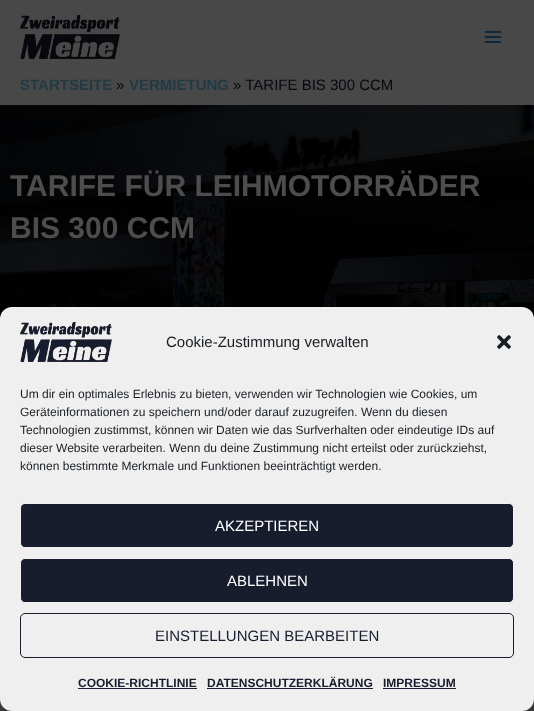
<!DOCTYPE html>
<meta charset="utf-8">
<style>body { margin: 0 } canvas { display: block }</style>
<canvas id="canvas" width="534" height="711"></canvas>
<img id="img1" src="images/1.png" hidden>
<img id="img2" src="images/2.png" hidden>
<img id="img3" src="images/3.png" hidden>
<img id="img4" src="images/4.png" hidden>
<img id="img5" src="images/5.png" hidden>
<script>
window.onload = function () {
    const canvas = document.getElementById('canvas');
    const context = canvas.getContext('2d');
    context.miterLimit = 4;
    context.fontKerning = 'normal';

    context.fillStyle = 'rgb(255, 255, 255)';
    context.fillRect(0, 0, 534, 711);
    context.fillStyle = 'rgb(72, 72, 72)';
    context.fillRect(0, 0, 534, 105);
    context.drawImage(document.getElementById('img1'), 20, 15, 100, 44);
    context.drawImage(document.getElementById('img2'), 484, 31, 18, 12);
    context.drawImage(document.getElementById('img3'), 0, 105, 534, 214);
    context.fillRect(0, 699, 534, 12);
    context.fillStyle = 'rgba(0, 0, 0, 0.23)';
    context.filter = 'blur(3px)';
    context.beginPath();
    context.roundRect(0, 313, 534, 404, 12);
    context.fill();
    context.filter = 'none';
    context.fillStyle = 'rgba(0, 0, 0, 0.19)';
    context.filter = 'blur(10px)';
    context.beginPath();
    context.roundRect(0, 317, 534, 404, 12);
    context.fill();
    context.filter = 'none';
    context.fillStyle = 'rgb(239, 239, 239)';
    context.beginPath();
    context.roundRect(0, 307, 534, 404, 12);
    context.fill();
    context.drawImage(document.getElementById('img4'), 20, 322, 92, 40);
    context.drawImage(document.getElementById('img5'), 497, 335, 14, 14);
    context.fillStyle = 'rgb(24, 29, 46)';
    context.beginPath();
    context.roundRect(20.5, 503.5, 493, 44, 4.5);
    context.fill();
    context.strokeStyle = 'rgb(241, 241, 241)';
    context.stroke();
    context.beginPath();
    context.roundRect(20.5, 558.5, 493, 44, 4.5);
    context.fill();
    context.stroke();
    context.beginPath();
    context.roundRect(20.5, 613.5, 493, 44, 4.5);
    context.strokeStyle = 'rgb(24, 29, 46)';
    context.stroke();
    context.fillRect(78, 688, 119, 1);
    context.fillRect(207, 688, 166, 1);
    context.fillRect(383, 688, 73, 1);
    context.font = 'bold 15px Liberation Sans';
    context.fillStyle = 'rgb(33, 58, 68)';
    context.fillText('STARTSEITE', 20, 90);
    context.font = '15px Liberation Sans';
    context.fillStyle = 'rgb(7, 9, 14)';
    context.fillText('»', 116, 90);
    context.font = 'bold 15px Liberation Sans';
    context.fillStyle = 'rgb(33, 58, 68)';
    context.fillText('VERMIETUNG', 129, 90);
    context.font = '15px Liberation Sans';
    context.fillStyle = 'rgb(7, 9, 14)';
    context.fillText('» TARIFE BIS 300 CCM', 233, 90);
    context.font = 'bold 30px Liberation Sans';
    context.fillStyle = 'rgb(77, 77, 77)';
    context.fillText('TARIFE FÜR LEIHMOTORRÄDER', 10, 196);
    context.fillText('BIS 300 CCM', 10, 238);
    context.font = '15px Liberation Sans';
    context.fillStyle = 'rgb(25, 30, 35)';
    context.fillText('Cookie-Zustimmung verwalten', 166, 347);
    context.font = '12px Liberation Sans';
    context.fillText('Um dir ein optimales Erlebnis zu bieten, verwenden wir Technologien wie Cookies, um', 20, 398);
    context.fillText('Geräteinformationen zu speichern und/oder darauf zuzugreifen. Wenn du diesen', 20, 416);
    context.fillText('Technologien zustimmst, können wir Daten wie das Surfverhalten oder eindeutige IDs auf', 20, 434);
    context.fillText('dieser Website verarbeiten. Wenn du deine Zustimmung nicht erteilst oder zurückziehst,', 20, 452);
    context.fillText('können bestimmte Merkmale und Funktionen beeinträchtigt werden.', 20, 470);
    context.font = '15px Liberation Sans';
    context.fillStyle = 'rgb(255, 255, 255)';
    context.fillText('AKZEPTIEREN', 215, 531);
    context.fillText('ABLEHNEN', 227, 586);
    context.fillStyle = 'rgb(24, 29, 46)';
    context.fillText('EINSTELLUNGEN BEARBEITEN', 155, 641);
    context.font = 'bold 12px Liberation Sans';
    context.fillText('COOKIE-RICHTLINIE', 78, 687);
    context.fillText('DATENSCHUTZERKLÄRUNG', 207, 687);
    context.fillText('IMPRESSUM', 383, 687);
};
</script>
